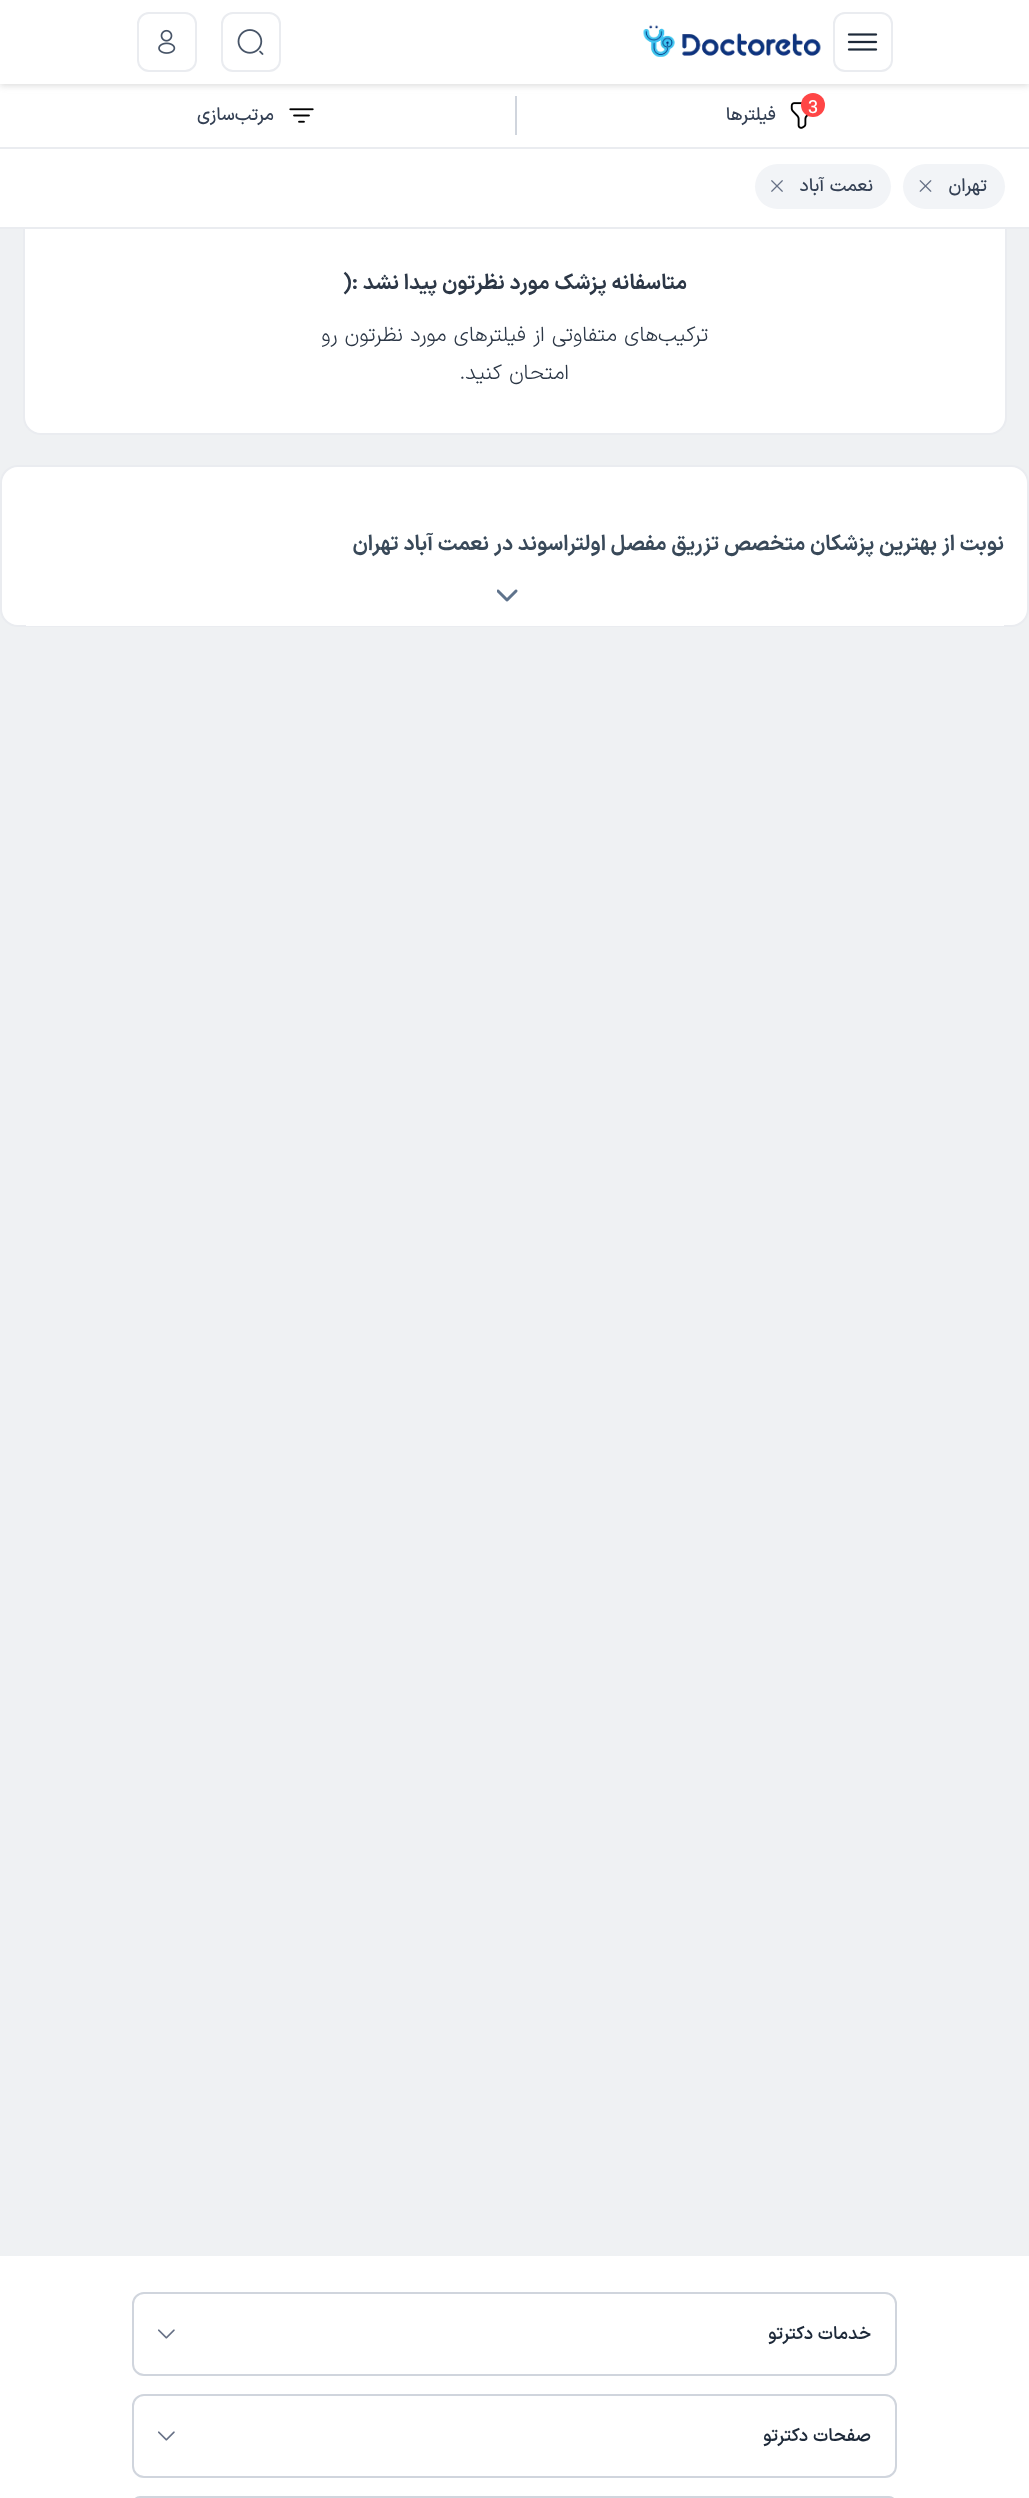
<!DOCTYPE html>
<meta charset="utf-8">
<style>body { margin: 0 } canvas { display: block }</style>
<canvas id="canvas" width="1029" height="2498"></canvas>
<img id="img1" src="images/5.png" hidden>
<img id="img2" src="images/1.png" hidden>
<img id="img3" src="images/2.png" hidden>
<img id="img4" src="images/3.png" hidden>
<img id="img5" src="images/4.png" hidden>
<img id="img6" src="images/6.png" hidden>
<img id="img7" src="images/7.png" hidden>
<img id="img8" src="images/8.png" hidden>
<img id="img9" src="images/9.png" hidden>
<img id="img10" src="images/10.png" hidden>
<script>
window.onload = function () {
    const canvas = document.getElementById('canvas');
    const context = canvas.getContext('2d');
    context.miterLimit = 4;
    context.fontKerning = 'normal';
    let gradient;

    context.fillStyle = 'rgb(255, 255, 255)';
    context.fillRect(0, 0, 1029, 2498);
    context.fillStyle = 'rgb(239, 241, 243)';
    context.fillRect(0, 229, 1029, 2027);
    context.fillStyle = 'rgb(255, 255, 255)';
    context.beginPath();
    context.roundRect(24, 63, 982, 371, 17);
    context.fill();
    context.strokeStyle = 'rgb(234, 236, 240)';
    context.lineWidth = 2;
    context.stroke();
    context.fillRect(23, 84, 984, 63);
    context.drawImage(document.getElementById('img1'), 790, 102, 19, 27);
    context.fillStyle = 'rgb(255, 70, 70)';
    context.beginPath();
    context.arc(813, 105, 12, 0, 2 * Math.PI);
    context.fill();
    context.fillStyle = 'rgba(189, 189, 189, 0.5)';
    context.filter = 'blur(3px)';
    context.beginPath();
    context.rect(0, 2, 1029, 84);
    context.fill();
    context.filter = 'none';
    context.fillStyle = 'rgb(255, 255, 255)';
    context.fillRect(0, 0, 1029, 84);
    context.beginPath();
    context.roundRect(834, 13, 58, 58, 11);
    context.stroke();
    context.drawImage(document.getElementById('img2'), 847, 33, 31, 18);
    context.drawImage(document.getElementById('img3'), 643, 25, 178, 32);
    context.beginPath();
    context.roundRect(222, 13, 58, 58, 11);
    context.stroke();
    context.drawImage(document.getElementById('img4'), 237, 29, 27, 26);
    context.beginPath();
    context.roundRect(138, 13, 58, 58, 11);
    context.stroke();
    context.drawImage(document.getElementById('img5'), 158, 29, 18, 25);
    context.fillStyle = 'rgb(234, 236, 240)';
    context.fillRect(0, 147, 1029, 2);
    context.fillStyle = 'rgb(208, 213, 221)';
    context.fillRect(515, 96, 2, 39);
    context.drawImage(document.getElementById('img6'), 289, 108, 25, 15);
    context.fillStyle = 'rgb(255, 255, 255)';
    context.fillRect(23, 149, 984, 78);
    context.fillStyle = 'rgb(234, 236, 240)';
    context.fillRect(0, 227, 1029, 2);
    context.fillStyle = 'rgb(242, 244, 247)';
    context.beginPath();
    context.roundRect(903, 164, 102, 45, 22.5);
    context.fill();
    context.drawImage(document.getElementById('img7'), 919, 180, 13, 12);
    context.beginPath();
    context.roundRect(755, 164, 136, 45, 22.5);
    context.fill();
    context.drawImage(document.getElementById('img8'), 771, 180, 12, 12);
    context.fillStyle = 'rgb(255, 255, 255)';
    context.beginPath();
    context.roundRect(1, 466, 1027, 160, 17);
    context.fill();
    context.stroke();
    gradient = context.createLinearGradient(515, 565, 515, 626);
    gradient.addColorStop(0, 'rgba(255, 255, 255, 0.5)');
    gradient.addColorStop(1, 'rgb(255, 255, 255)');
    context.fillStyle = gradient;
    context.fillRect(26, 625, 978, 1);
    context.drawImage(document.getElementById('img9'), 497, 589, 21, 13);
    context.beginPath();
    context.roundRect(133, 2293, 763, 82, 11);
    context.strokeStyle = 'rgb(208, 213, 221)';
    context.stroke();
    context.drawImage(document.getElementById('img10'), 158, 2329, 17, 10);
    context.beginPath();
    context.roundRect(133, 2395, 763, 82, 11);
    context.stroke();
    context.drawImage(document.getElementById('img10'), 158, 2431, 17, 10);
    context.beginPath();
    context.roundRect(133, 2497, 763, 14, 11);
    context.stroke();
    context.font = '500 18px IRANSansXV';
    context.fillStyle = 'rgb(255, 255, 255)';
    context.fillText('3', 808, 113);
    context.direction = 'rtl';
    context.fillStyle = 'rgb(52, 64, 84)';
    context.fillText('فیلتر‌ها', 776, 120);
    context.fillText('مرتب‌سازی', 274, 120);
    context.fillText('تهران', 987, 191);
    context.fillText('نعمت آباد', 873, 191);
    context.font = 'bold 21px IRANSansXV';
    context.fillStyle = 'rgb(44, 55, 70)';
    context.fillText('متاسفانه پزشک مورد نظرتون پیدا نشد :(', 687, 289);
    context.font = '300 21px IRANSansXV';
    context.fillText('ترکیب‌های متفاوتی از فیلتر‌های مورد نظرتون رو', 708, 341);
    context.fillText('امتحان کنید.', 569, 379);
    context.font = 'bold 21px IRANSansXV';
    context.fillStyle = 'rgb(57, 73, 89)';
    context.fillText('نوبت از بهترین پزشکان متخصص تزریق مفصل اولتراسوند در نعمت آباد تهران', 1004, 550);
    context.font = '600 18px IRANSansXV';
    context.fillStyle = 'rgb(29, 41, 57)';
    context.fillText('خدمات دکترتو', 871, 2339);
    context.fillText('صفحات دکترتو', 871, 2441);
};
</script>
